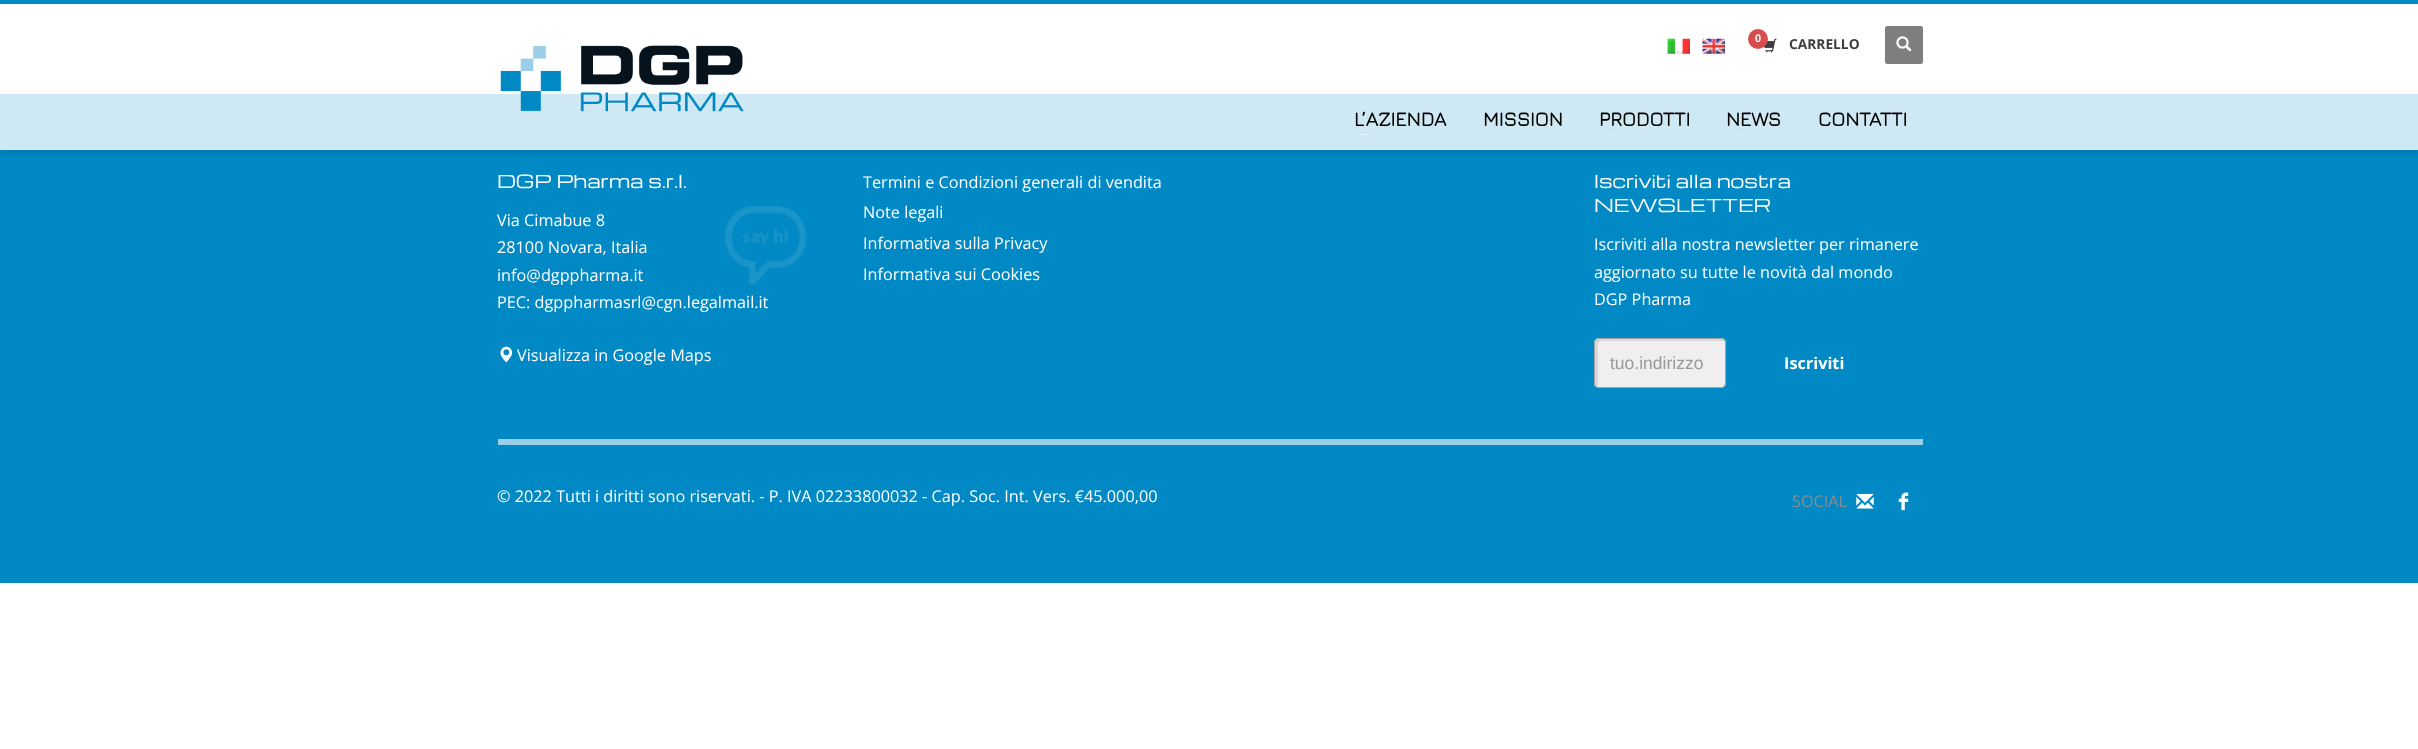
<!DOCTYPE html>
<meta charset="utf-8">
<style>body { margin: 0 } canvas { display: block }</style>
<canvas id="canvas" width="2418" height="749"></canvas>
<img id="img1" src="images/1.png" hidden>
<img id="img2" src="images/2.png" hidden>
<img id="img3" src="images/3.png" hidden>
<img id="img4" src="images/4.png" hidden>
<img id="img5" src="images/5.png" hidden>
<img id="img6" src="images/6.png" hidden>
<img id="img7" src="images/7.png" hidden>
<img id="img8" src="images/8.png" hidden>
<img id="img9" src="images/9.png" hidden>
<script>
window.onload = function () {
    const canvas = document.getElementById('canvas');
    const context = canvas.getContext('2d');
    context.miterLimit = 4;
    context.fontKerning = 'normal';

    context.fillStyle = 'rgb(255, 255, 255)';
    context.fillRect(0, 0, 2418, 749);
    context.fillStyle = 'rgb(0, 137, 196)';
    context.fillRect(0, 150, 2418, 433);
    context.fillStyle = 'rgb(207, 233, 244)';
    context.fillRect(0, 94, 2418, 56);
    context.save();
    context.beginPath();
    context.rect(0, 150, 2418, 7);
    context.clip();
    context.fillStyle = 'rgba(0, 0, 0, 0.1)';
    context.filter = 'blur(3px)';
    context.beginPath();
    context.rect(0, 4, 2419, 150);
    context.fill();
    context.filter = 'none';
    context.restore();
    context.fillStyle = 'rgb(0, 137, 196)';
    context.fillRect(0, 0, 2418, 4);
    context.drawImage(document.getElementById('img1'), 500, 45, 244, 67);
    context.drawImage(document.getElementById('img2'), 1667, 38, 23, 16);
    context.drawImage(document.getElementById('img3'), 1702, 38, 23, 16);
    context.drawImage(document.getElementById('img4'), 1764, 38, 13, 15);
    context.fillStyle = 'rgb(215, 77, 78)';
    context.beginPath();
    context.arc(1758, 39, 10, 0, 2 * Math.PI);
    context.fill();
    context.fillStyle = 'rgb(127, 127, 127)';
    context.beginPath();
    context.roundRect(1885, 26, 38, 38, 2.5);
    context.fill();
    context.drawImage(document.getElementById('img5'), 1896, 36, 16, 16);
    context.fillStyle = 'rgb(226, 242, 248)';
    context.fillRect(1360, 134, 9, 1);
    context.fillRect(1605, 134, 9, 1);
    context.fillRect(1733, 134, 8, 1);
    context.drawImage(document.getElementById('img6'), 725, 206, 82, 79);
    context.drawImage(document.getElementById('img7'), 500, 346, 13, 17);
    context.fillStyle = 'rgb(239, 239, 239)';
    context.beginPath();
    context.roundRect(1594, 338, 132, 50, 5);
    context.fill();
    context.fillStyle = 'rgb(215, 215, 215)';
    context.beginPath();
    context.moveTo(1601, 341);
    context.lineTo(1724, 341);
    context.bezierCurveTo(1724, 340, 1722, 339, 1721, 339);
    context.lineTo(1599, 339);
    context.bezierCurveTo(1597, 339, 1595, 341, 1595, 343);
    context.lineTo(1595, 382);
    context.bezierCurveTo(1595, 384, 1596, 385, 1598, 386);
    context.lineTo(1598, 352);
    context.bezierCurveTo(1598, 350, 1596, 341, 1601, 341);
    context.closePath();
    context.fill();
    context.beginPath();
    context.roundRect(1594.5, 338.5, 131, 49, 4.5);
    context.strokeStyle = 'rgb(163, 163, 163)';
    context.stroke();
    context.fillStyle = 'rgb(154, 207, 231)';
    context.fillRect(498, 439, 1425, 6);
    context.drawImage(document.getElementById('img8'), 1856, 493, 18, 16);
    context.drawImage(document.getElementById('img9'), 1898, 492, 11, 19);
    context.font = 'bold 11px Liberation Sans';
    context.fillStyle = 'rgb(255, 255, 255)';
    context.fillText('0', 1755, 42);
    context.font = 'bold 13.75px Open Sans';
    context.fillStyle = 'rgb(61, 61, 61)';
    context.fillText('CARRELLO', 1789, 49);
    context.font = 'bold 20px Jura';
    context.fillStyle = 'rgb(0, 0, 0)';
    context.fillText('L’AZIENDA', 1354, 126);
    context.fillText('MISSION', 1483, 126);
    context.fillText('PRODOTTI', 1599, 126);
    context.fillText('NEWS', 1726, 126);
    context.fillText('CONTATTI', 1818, 126);
    context.font = '17.5px Michroma';
    context.fillStyle = 'rgb(255, 255, 255)';
    context.fillText('DGP Pharma s.r.l.', 497, 188);
    context.font = '16.25px Open Sans';
    context.fillText('Via Cimabue 8', 497, 226);
    context.fillText('28100 Novara, Italia', 497, 253);
    context.fillText('info@dgppharma.it', 497, 281);
    context.fillText('PEC: dgppharmasrl@cgn.legalmail.it', 497, 308);
    context.fillText('Visualizza in Google Maps', 517, 361);
    context.fillText('Termini e Condizioni generali di vendita', 863, 188);
    context.fillText('Note legali', 863, 218);
    context.fillText('Informativa sulla Privacy', 863, 249);
    context.fillText('Informativa sui Cookies', 863, 280);
    context.font = '17.5px Michroma';
    context.fillText('Iscriviti alla nostra', 1594, 188);
    context.fillText('NEWSLETTER', 1594, 212);
    context.font = '16.25px Open Sans';
    context.fillText('Iscriviti alla nostra newsletter per rimanere', 1594, 250);
    context.fillText('aggiornato su tutte le novità dal mondo', 1594, 278);
    context.fillText('DGP Pharma', 1594, 305);
    context.font = '17.5px Liberation Sans';
    context.fillStyle = 'rgb(153, 153, 153)';
    context.fillText('tuo.indirizzo', 1610, 369);
    context.font = 'bold 16.25px Open Sans';
    context.fillStyle = 'rgb(255, 255, 255)';
    context.fillText('Iscriviti', 1784, 369);
    context.font = '16.25px Open Sans';
    context.fillText('© 2022 Tutti i diritti sono riservati. - P. IVA 02233800032 - Cap. Soc. Int. Vers. €45.000,00', 497, 502);
    context.fillStyle = 'rgb(139, 140, 141)';
    context.fillText('SOCIAL', 1792, 507);
};
</script>
